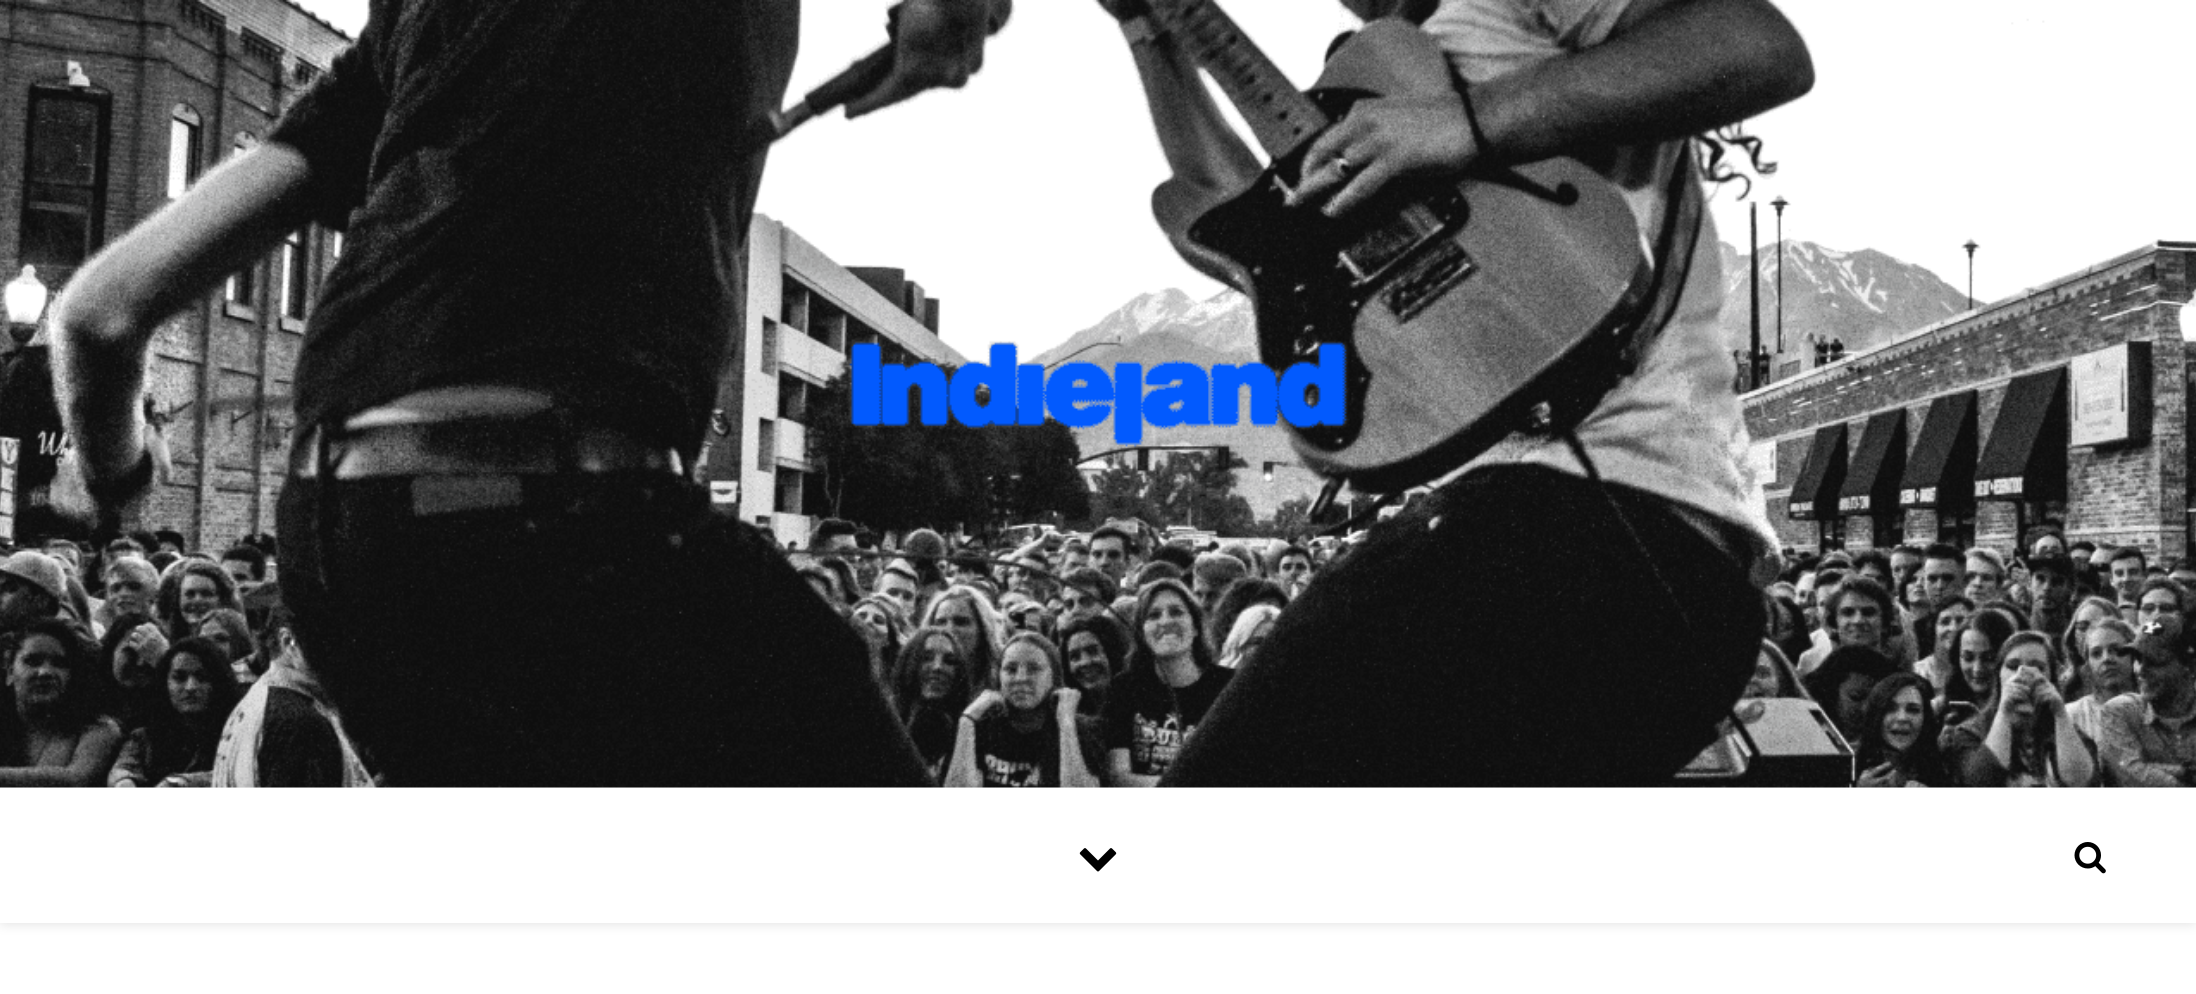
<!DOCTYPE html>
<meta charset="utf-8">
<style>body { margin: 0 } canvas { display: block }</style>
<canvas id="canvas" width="2196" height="994"></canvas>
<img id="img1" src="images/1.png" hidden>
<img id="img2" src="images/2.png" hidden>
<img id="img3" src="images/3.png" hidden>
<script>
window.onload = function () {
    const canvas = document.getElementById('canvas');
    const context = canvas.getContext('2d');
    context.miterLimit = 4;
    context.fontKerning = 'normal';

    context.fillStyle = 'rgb(255, 255, 255)';
    context.fillRect(0, 0, 2196, 994);
    context.drawImage(document.getElementById('img1'), 0, 0, 2196, 788);
    context.fillStyle = 'rgba(0, 0, 0, 0.1)';
    context.filter = 'blur(5.5px)';
    context.beginPath();
    context.rect(0, 790, 2196, 135);
    context.fill();
    context.filter = 'none';
    context.fillStyle = 'rgb(255, 255, 255)';
    context.fillRect(0, 788, 2196, 135);
    context.drawImage(document.getElementById('img2'), 1079, 848, 38, 24);
    context.drawImage(document.getElementById('img3'), 2074, 842, 32, 32);
};
</script>
